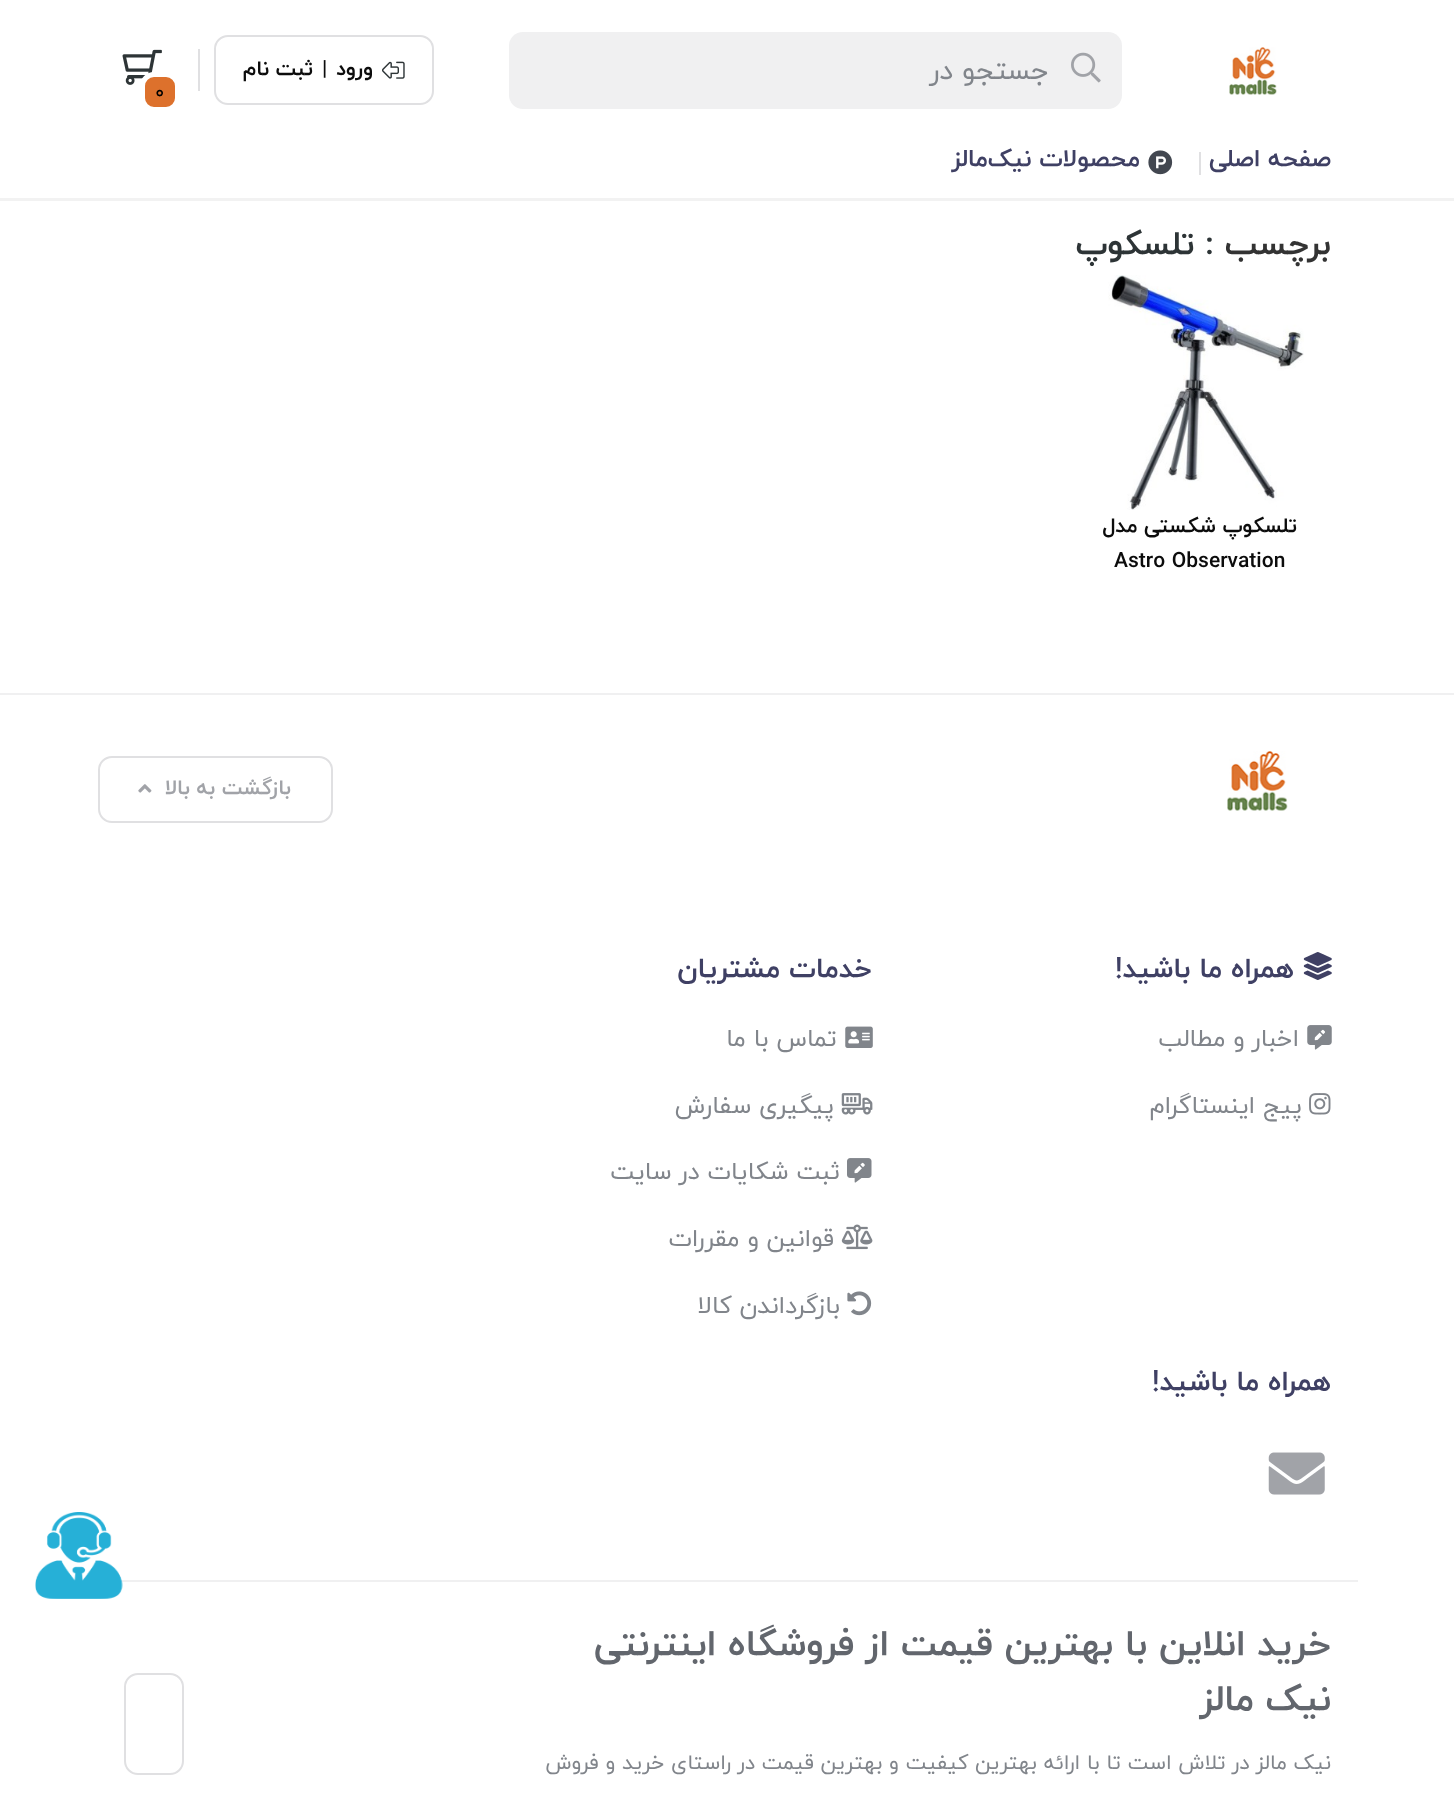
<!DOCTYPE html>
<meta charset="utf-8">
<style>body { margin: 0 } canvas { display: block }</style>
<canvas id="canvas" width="1454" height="1809"></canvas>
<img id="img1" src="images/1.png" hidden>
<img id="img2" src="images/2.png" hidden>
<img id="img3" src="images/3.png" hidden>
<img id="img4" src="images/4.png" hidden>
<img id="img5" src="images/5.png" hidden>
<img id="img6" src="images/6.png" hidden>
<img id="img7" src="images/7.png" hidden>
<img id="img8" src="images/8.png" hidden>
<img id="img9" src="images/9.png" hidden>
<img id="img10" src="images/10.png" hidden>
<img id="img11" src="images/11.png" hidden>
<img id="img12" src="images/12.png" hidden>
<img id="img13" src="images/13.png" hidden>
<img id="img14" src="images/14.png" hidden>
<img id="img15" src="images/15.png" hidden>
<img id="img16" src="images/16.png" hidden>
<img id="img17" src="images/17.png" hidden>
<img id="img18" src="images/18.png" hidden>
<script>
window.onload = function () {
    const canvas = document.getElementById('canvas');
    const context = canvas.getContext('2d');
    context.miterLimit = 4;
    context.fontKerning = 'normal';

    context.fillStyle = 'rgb(255, 255, 255)';
    context.fillRect(0, 0, 1454, 1809);
    context.fillStyle = 'rgba(0, 0, 0, 0.05)';
    context.fillRect(0, 198, 1454, 3);
    context.drawImage(document.getElementById('img1'), 1229, 47, 48, 48);
    context.fillStyle = 'rgb(240, 240, 241)';
    context.beginPath();
    context.roundRect(509, 32, 613, 77, 14);
    context.fill();
    context.drawImage(document.getElementById('img2'), 1071, 52, 30, 31);
    context.beginPath();
    context.roundRect(215, 36, 218, 68, 13);
    context.strokeStyle = 'rgb(224, 224, 226)';
    context.lineWidth = 2;
    context.stroke();
    context.drawImage(document.getElementById('img3'), 382, 61, 23, 18);
    context.fillStyle = 'rgb(224, 224, 226)';
    context.fillRect(198, 49, 2, 42);
    context.drawImage(document.getElementById('img4'), 122, 49, 40, 36);
    context.fillStyle = 'rgb(221, 113, 44)';
    context.beginPath();
    context.roundRect(142.5, 74.5, 35, 35, 11.5);
    context.fill();
    context.strokeStyle = 'rgb(255, 255, 255)';
    context.lineWidth = 5;
    context.stroke();
    context.fillStyle = 'rgb(224, 224, 226)';
    context.fillRect(1199, 152, 2, 23);
    context.drawImage(document.getElementById('img5'), 1148, 150, 25, 25);
    context.drawImage(document.getElementById('img6'), 1108, 275, 196, 235);
    context.fillStyle = 'rgb(240, 240, 241)';
    context.fillRect(0, 693, 1454, 2);
    context.drawImage(document.getElementById('img7'), 1227, 751, 61, 60);
    context.beginPath();
    context.roundRect(99, 757, 233, 65, 13);
    context.strokeStyle = 'rgb(224, 224, 226)';
    context.lineWidth = 2;
    context.stroke();
    context.drawImage(document.getElementById('img8'), 138, 784, 14, 9);
    context.drawImage(document.getElementById('img9'), 1303, 952, 29, 28);
    context.drawImage(document.getElementById('img10'), 1307, 1025, 25, 25);
    context.drawImage(document.getElementById('img11'), 1309, 1093, 22, 22);
    context.drawImage(document.getElementById('img12'), 845, 1026, 28, 22);
    context.drawImage(document.getElementById('img13'), 841, 1093, 32, 22);
    context.drawImage(document.getElementById('img14'), 847, 1158, 25, 25);
    context.drawImage(document.getElementById('img15'), 841, 1224, 32, 26);
    context.drawImage(document.getElementById('img16'), 847, 1291, 25, 25);
    context.drawImage(document.getElementById('img17'), 1268, 1452, 57, 43);
    context.fillRect(120, 1580, 1238, 2);
    context.beginPath();
    context.roundRect(125, 1674, 58, 100, 13);
    context.stroke();
    context.drawImage(document.getElementById('img18'), 35, 1512, 88, 87);
    context.direction = 'rtl';
    context.font = '28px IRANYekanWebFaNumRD';
    context.fillStyle = 'rgb(129, 133, 139)';
    context.fillText('جستجو در', 1049, 79);
    context.font = 'bold 21px IRANYekanWebFaNumRD';
    context.fillStyle = 'rgb(12, 12, 12)';
    context.fillText('ورود', 373, 75);
    context.direction = 'ltr';
    context.fillText('|', 322, 75);
    context.direction = 'rtl';
    context.fillText('ثبت نام', 313, 75);
    context.direction = 'ltr';
    context.font = '19px IRANYekanWebFaNumRD';
    context.fillStyle = 'rgb(0, 0, 0)';
    context.fillText('0', 155, 98);
    context.direction = 'rtl';
    context.font = 'bold 24.5px IRANYekanWebFaNumRD';
    context.fillStyle = 'rgb(63, 64, 100)';
    context.fillText('صفحه اصلی', 1331, 166);
    context.fillText('محصولات نیک‌مالز', 1140, 166);
    context.font = 'bold 33.5px IRANYekanWebFaNumRD';
    context.fillStyle = 'rgb(51, 51, 51)';
    context.fillText('برچسب', 1331, 254);
    context.fillStyle = 'rgb(45, 52, 54)';
    context.fillText(': تلسکوپ', 1214, 254);
    context.font = 'bold 21px IRANYekanWebFaNumRD';
    context.fillStyle = 'rgb(12, 12, 12)';
    context.fillText('تلسکوپ شکستی مدل', 1297, 532);
    context.direction = 'ltr';
    context.fillText('Astro Observation', 1114, 567);
    context.direction = 'rtl';
    context.fillStyle = 'rgb(161, 163, 168)';
    context.fillText('بازگشت به بالا', 291, 794);
    context.font = 'bold 28px IRANYekanWebFaNumRD';
    context.fillStyle = 'rgb(63, 64, 100)';
    context.fillText('همراه ما باشید!', 1294, 977);
    context.font = '24.5px IRANYekanWebFaNumRD';
    context.fillStyle = 'rgb(129, 133, 139)';
    context.fillText('اخبار و مطالب', 1299, 1046);
    context.fillText('پیج اینستاگرام', 1302, 1113);
    context.font = 'bold 28px IRANYekanWebFaNumRD';
    context.fillStyle = 'rgb(63, 64, 100)';
    context.fillText('خدمات مشتریان', 872, 977);
    context.font = '24.5px IRANYekanWebFaNumRD';
    context.fillStyle = 'rgb(129, 133, 139)';
    context.fillText('تماس با ما', 837, 1046);
    context.fillText('پیگیری سفارش', 834, 1113);
    context.fillText('ثبت شکایات در سایت', 840, 1179);
    context.fillText('قوانین و مقررات', 834, 1246);
    context.fillText('بازگرداندن کالا', 840, 1313);
    context.font = 'bold 28px IRANYekanWebFaNumRD';
    context.fillStyle = 'rgb(63, 64, 100)';
    context.fillText('همراه ما باشید!', 1331, 1390);
    context.font = 'bold 36.75px IRANYekanWebFaNumRD';
    context.fillStyle = 'rgb(98, 102, 109)';
    context.fillText('خرید انلاین با بهترین قیمت از فروشگاه اینترنتی', 1331, 1655);
    context.fillText('نیک مالز', 1331, 1710);
    context.font = '21px IRANYekanWebFaNumRD';
    context.fillStyle = 'rgb(129, 133, 139)';
    context.fillText('نیک مالز در تلاش است تا با ارائه بهترین کیفیت و بهترین قیمت', 1331, 1769);
    context.fillText('در راستای خرید و فروش', 755, 1769);
};
</script>
